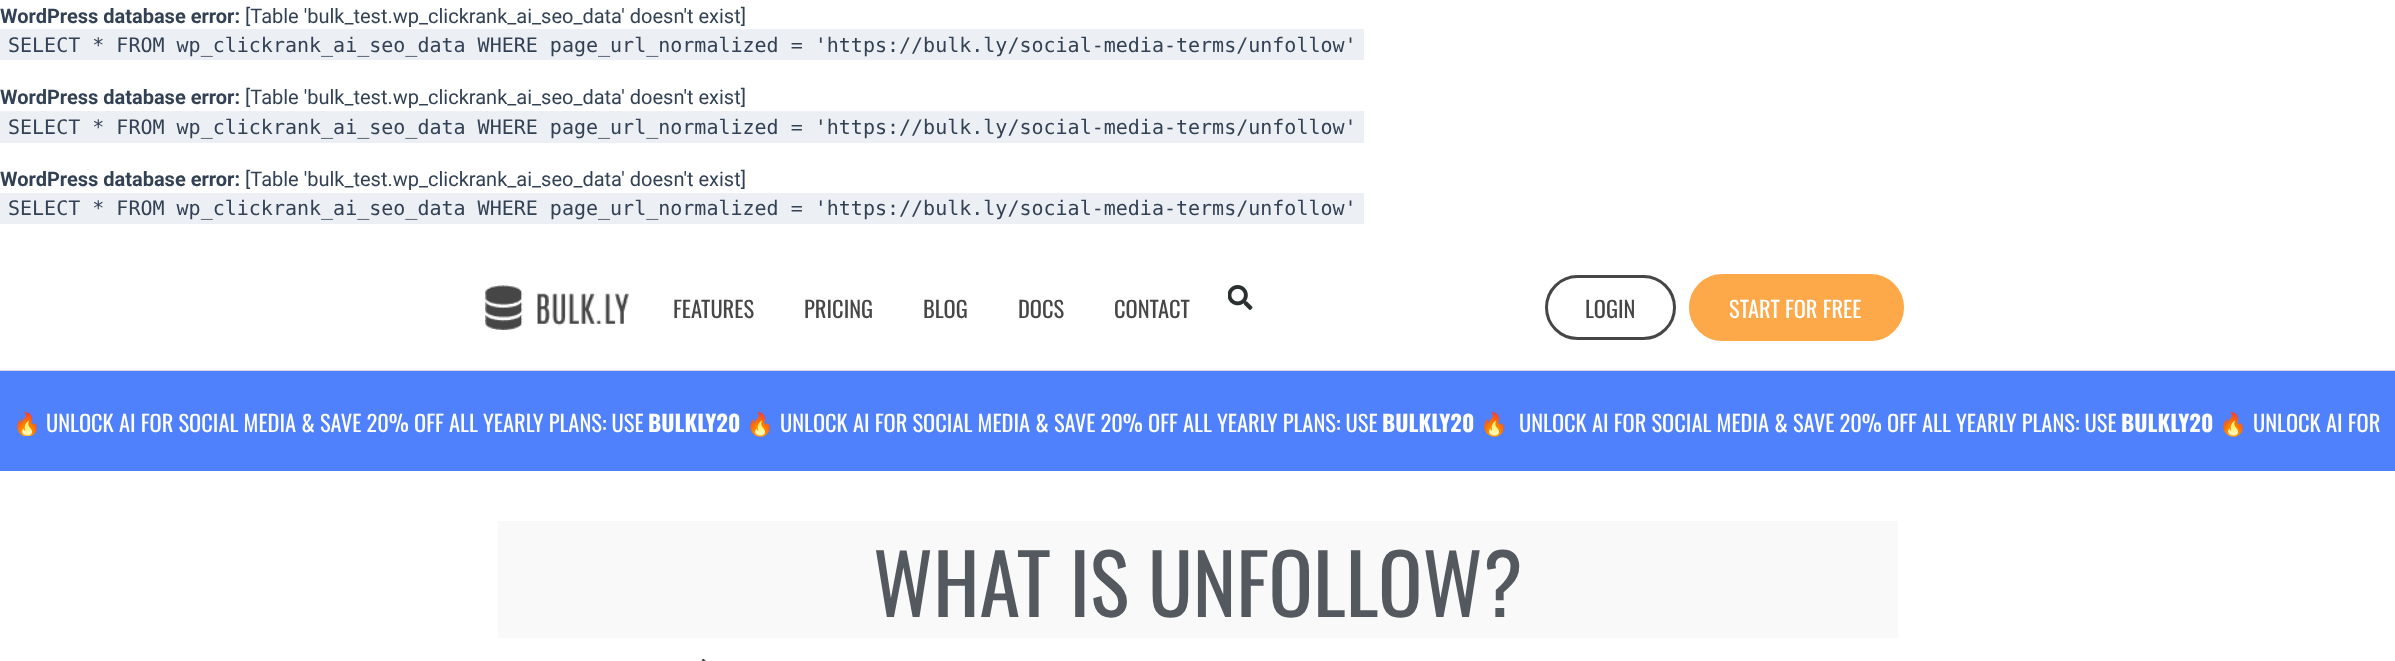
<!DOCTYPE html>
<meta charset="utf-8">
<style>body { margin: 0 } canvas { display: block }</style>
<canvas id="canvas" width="2395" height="661"></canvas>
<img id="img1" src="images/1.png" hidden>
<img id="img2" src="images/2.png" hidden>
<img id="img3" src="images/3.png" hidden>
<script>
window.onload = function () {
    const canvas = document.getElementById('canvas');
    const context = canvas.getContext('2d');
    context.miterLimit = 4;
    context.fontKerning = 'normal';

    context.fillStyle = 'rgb(255, 255, 255)';
    context.fillRect(0, 0, 2395, 661);
    context.fillStyle = 'rgb(236, 239, 243)';
    context.fillRect(0, 29, 1364, 31);
    context.fillRect(0, 111, 1364, 32);
    context.fillRect(0, 193, 1364, 31);
    context.fillStyle = 'rgb(218, 218, 221)';
    context.fillRect(0, 370, 2395, 1);
    context.drawImage(document.getElementById('img1'), 485, 285, 144, 45);
    context.drawImage(document.getElementById('img2'), 1228, 285, 25, 25);
    context.beginPath();
    context.roundRect(1546.5, 276.5, 128, 62, 31);
    context.strokeStyle = 'rgb(70, 70, 70)';
    context.lineWidth = 3;
    context.stroke();
    context.fillStyle = 'rgb(253, 169, 73)';
    context.beginPath();
    context.roundRect(1691, 276, 211, 63, 31.5);
    context.fill();
    context.strokeStyle = 'rgb(253, 169, 73)';
    context.lineWidth = 4;
    context.stroke();
    context.fillStyle = 'rgb(80, 129, 252)';
    context.fillRect(0, 371, 2395, 100);
    context.fillStyle = 'rgb(249, 249, 249)';
    context.fillRect(498, 521, 1400, 117);
    context.drawImage(document.getElementById('img3'), 701, 658, 5, 3);
    context.font = 'bold 20px Roboto';
    context.fillStyle = 'rgb(51, 65, 85)';
    context.fillText('WordPress database error:', 0, 23);
    context.font = '20px Roboto';
    context.fillText('[Table \'bulk_test.wp_clickrank_ai_seo_data\' doesn\'t exist]', 245, 23);
    context.font = '20px DejaVu Sans Mono';
    context.fillText('SELECT * FROM wp_clickrank_ai_seo_data WHERE page_url_normalized = \'https://bulk.ly/social-media-terms/unfollow\'', 8, 52);
    context.font = 'bold 20px Roboto';
    context.fillText('WordPress database error:', 0, 104);
    context.font = '20px Roboto';
    context.fillText('[Table \'bulk_test.wp_clickrank_ai_seo_data\' doesn\'t exist]', 245, 104);
    context.font = '20px DejaVu Sans Mono';
    context.fillText('SELECT * FROM wp_clickrank_ai_seo_data WHERE page_url_normalized = \'https://bulk.ly/social-media-terms/unfollow\'', 8, 134);
    context.font = 'bold 20px Roboto';
    context.fillText('WordPress database error:', 0, 186);
    context.font = '20px Roboto';
    context.fillText('[Table \'bulk_test.wp_clickrank_ai_seo_data\' doesn\'t exist]', 245, 186);
    context.font = '20px DejaVu Sans Mono';
    context.fillText('SELECT * FROM wp_clickrank_ai_seo_data WHERE page_url_normalized = \'https://bulk.ly/social-media-terms/unfollow\'', 8, 215);
    context.font = '22.5px Oswald';
    context.fillStyle = 'rgb(70, 70, 70)';
    context.fillText('FEATURES', 673, 318);
    context.fillText('PRICING', 804, 318);
    context.fillText('BLOG', 923, 318);
    context.fillText('DOCS', 1018, 318);
    context.fillText('CONTACT', 1114, 318);
    context.fillText('LOGIN', 1585, 318);
    context.fillStyle = 'rgb(255, 255, 255)';
    context.fillText('START FOR FREE', 1729, 318);
    context.save();
    context.beginPath();
    context.rect(13, 409, 2370, 27);
    context.clip();
    context.font = '22.5px Noto Color Emoji';
    context.fillText('️‍🔥', 13, 432);
    context.restore();
    context.fillText('UNLOCK AI FOR SOCIAL MEDIA & SAVE 20% OFF ALL YEARLY PLANS: USE', 46, 432);
    context.font = 'bold 22.5px Oswald';
    context.fillText('BULKLY20', 648, 432);
    context.font = '22.5px Oswald';
    context.fillText('️‍🔥', 746, 432);
    context.fillText('UNLOCK AI FOR SOCIAL MEDIA & SAVE 20% OFF ALL YEARLY PLANS: USE', 780, 432);
    context.font = 'bold 22.5px Oswald';
    context.fillText('BULKLY20', 1382, 432);
    context.font = '22.5px Oswald';
    context.fillText('️‍🔥', 1480, 432);
    context.fillText('UNLOCK AI FOR SOCIAL MEDIA & SAVE 20% OFF ALL YEARLY PLANS: USE', 1519, 432);
    context.font = 'bold 22.5px Oswald';
    context.fillText('BULKLY20', 2121, 432);
    context.font = '22.5px Oswald';
    context.fillText('️‍🔥', 2219, 432);
    context.fillText('UNLOCK AI FOR', 2253, 432);
    context.font = '82.5px Oswald';
    context.fillStyle = 'rgb(84, 89, 95)';
    context.fillText('WHAT IS UNFOLLOW?', 873, 617);
};
</script>
